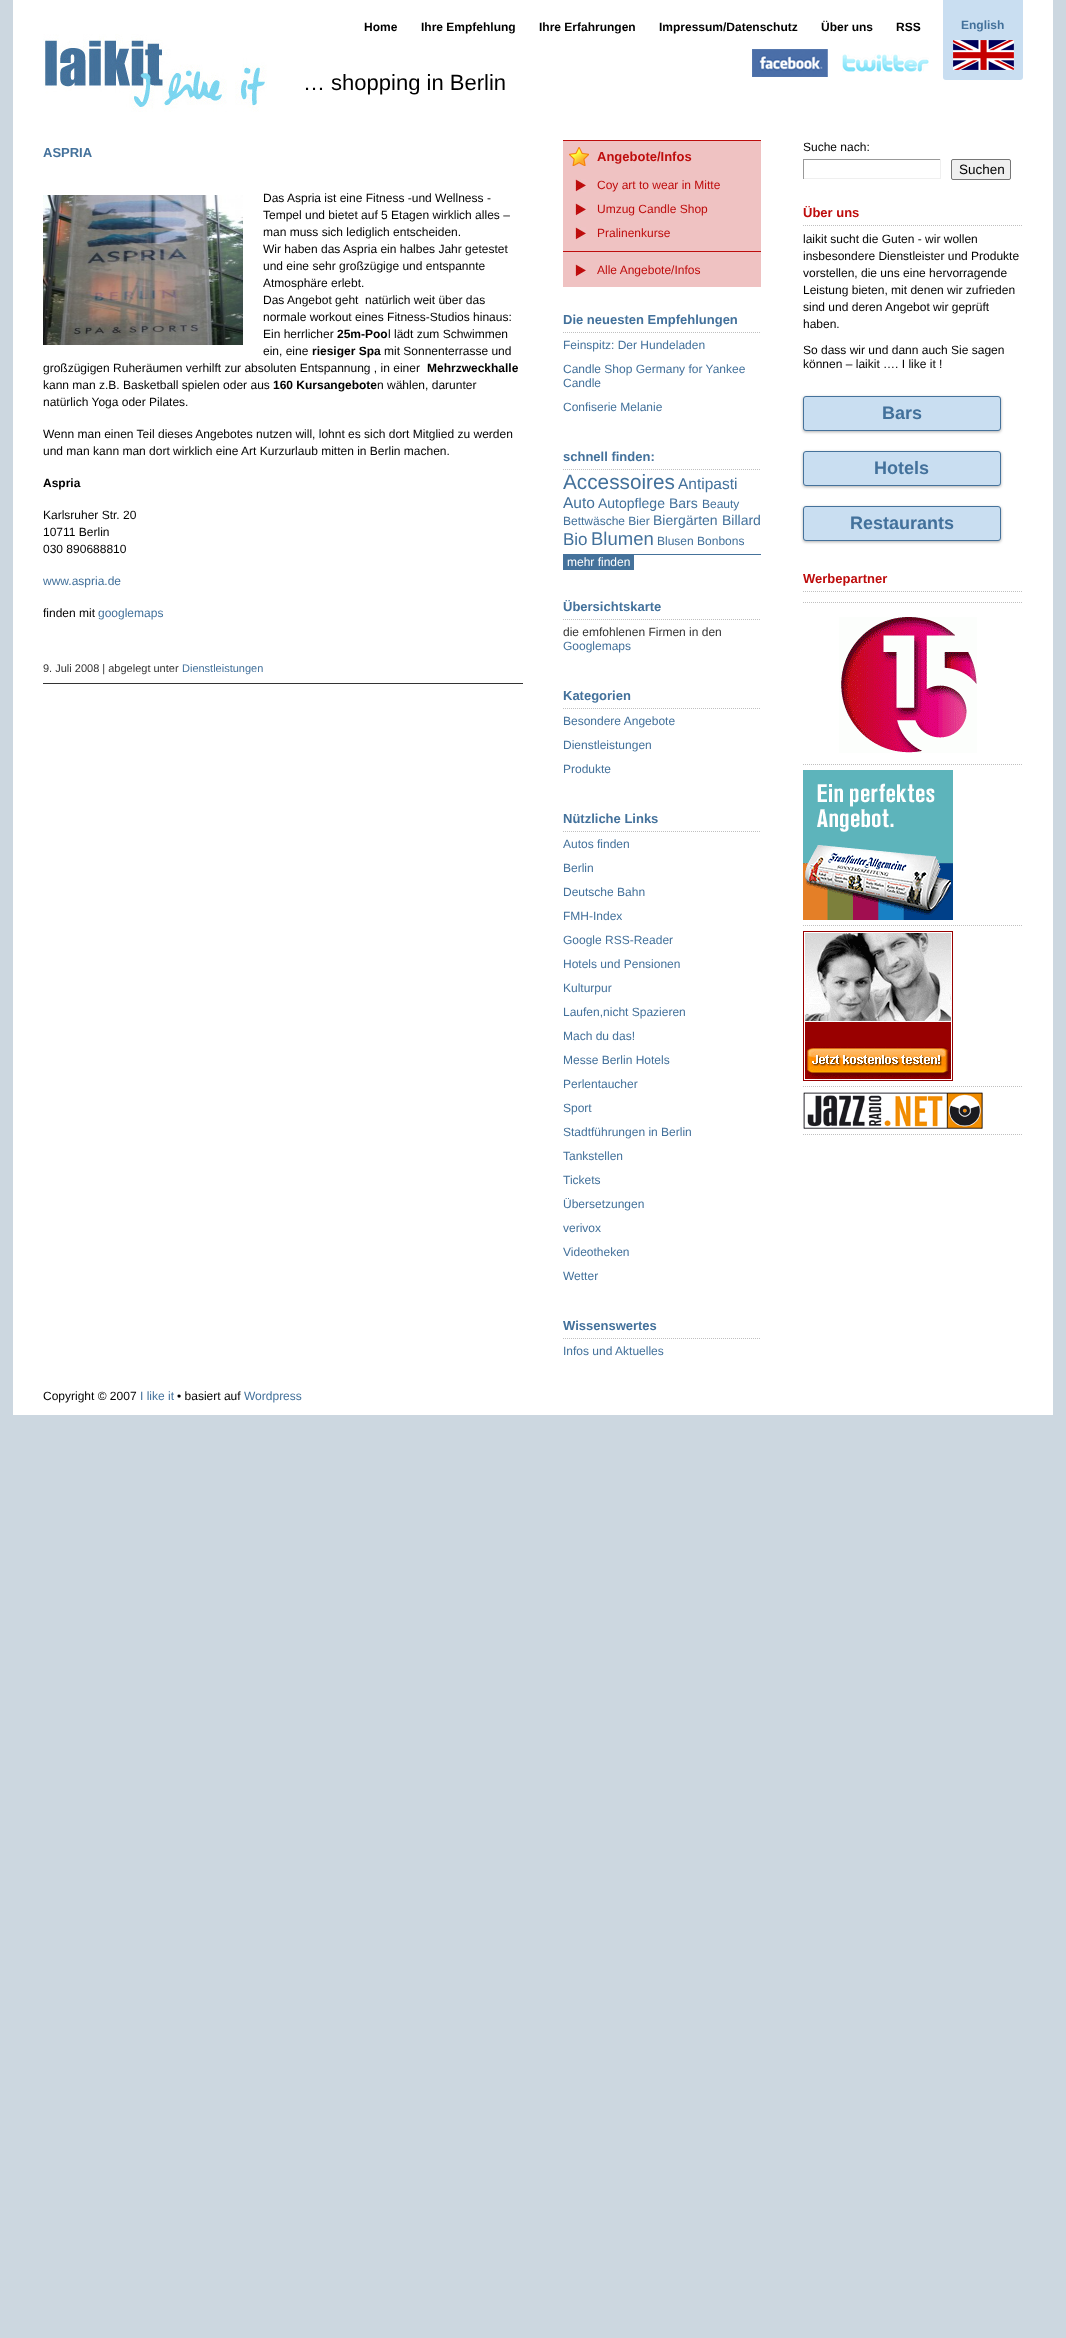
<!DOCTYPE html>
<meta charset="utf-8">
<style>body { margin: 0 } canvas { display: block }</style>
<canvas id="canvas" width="1066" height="2338"></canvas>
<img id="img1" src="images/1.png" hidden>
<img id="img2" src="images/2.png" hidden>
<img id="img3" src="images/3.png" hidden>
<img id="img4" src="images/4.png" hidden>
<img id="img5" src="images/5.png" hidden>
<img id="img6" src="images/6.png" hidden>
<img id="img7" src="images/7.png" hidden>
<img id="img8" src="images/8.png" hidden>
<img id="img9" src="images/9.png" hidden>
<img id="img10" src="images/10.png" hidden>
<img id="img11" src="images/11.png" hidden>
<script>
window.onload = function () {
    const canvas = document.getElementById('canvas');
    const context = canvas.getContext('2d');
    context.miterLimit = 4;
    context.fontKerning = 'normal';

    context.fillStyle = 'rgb(204, 215, 224)';
    context.fillRect(0, 0, 1066, 2338);
    context.fillStyle = 'rgb(255, 255, 255)';
    context.fillRect(13, 0, 1040, 1415);
    context.fillStyle = 'rgb(201, 222, 241)';
    context.beginPath();
    context.roundRect(943, 0, 80, 80, [0, 0, 3, 3]);
    context.fill();
    context.drawImage(document.getElementById('img1'), 953, 40, 61, 30);
    context.drawImage(document.getElementById('img2'), 752, 49, 76, 28);
    context.drawImage(document.getElementById('img3'), 842, 54, 87, 18);
    context.drawImage(document.getElementById('img4'), 43, 34, 224, 78);
    context.drawImage(document.getElementById('img5'), 43, 195, 200, 150);
    context.fillStyle = 'rgb(51, 51, 51)';
    context.fillRect(43, 683, 480, 1);
    context.fillStyle = 'rgb(239, 194, 194)';
    context.fillRect(563, 141, 198, 146);
    context.drawImage(document.getElementById('img6'), 569, 147, 20, 19);
    context.fillStyle = 'rgb(190, 12, 12)';
    context.fillRect(563, 140, 198, 1);
    context.drawImage(document.getElementById('img7'), 575, 179, 11, 13);
    context.drawImage(document.getElementById('img7'), 575, 203, 11, 13);
    context.drawImage(document.getElementById('img7'), 575, 227, 11, 13);
    context.fillRect(563, 251, 198, 1);
    context.drawImage(document.getElementById('img7'), 575, 264, 11, 13);
    context.beginPath();
    context.moveTo(563, 332.5);
    context.lineTo(761, 332.5);
    context.strokeStyle = 'rgb(192, 192, 192)';
    context.setLineDash([1, 1]);
    context.stroke();
    context.fillStyle = 'rgb(69, 114, 155)';
    context.fillRect(563, 554, 198, 1);
    context.beginPath();
    context.moveTo(563, 469.5);
    context.lineTo(761, 469.5);
    context.stroke();
    context.fillRect(563, 555, 71, 15);
    context.beginPath();
    context.moveTo(563, 619.5);
    context.lineTo(761, 619.5);
    context.stroke();
    context.beginPath();
    context.moveTo(563, 708.5);
    context.lineTo(761, 708.5);
    context.stroke();
    context.beginPath();
    context.moveTo(563, 831.5);
    context.lineTo(761, 831.5);
    context.stroke();
    context.beginPath();
    context.moveTo(563, 1338.5);
    context.lineTo(761, 1338.5);
    context.stroke();
    context.fillStyle = 'rgb(153, 153, 153)';
    context.fillRect(803, 159, 138, 1);
    context.fillStyle = 'rgb(239, 239, 239)';
    context.fillRect(940, 159, 1, 20);
    context.fillRect(803, 178, 138, 1);
    context.fillStyle = 'rgb(153, 153, 153)';
    context.fillRect(803, 159, 1, 20);
    context.fillStyle = 'rgb(239, 239, 239)';
    context.beginPath();
    context.roundRect(951.5, 159.5, 59, 20, 1.5);
    context.fill();
    context.strokeStyle = 'rgb(118, 118, 118)';
    context.setLineDash([]);
    context.stroke();
    context.beginPath();
    context.moveTo(803, 225.5);
    context.lineTo(1023, 225.5);
    context.strokeStyle = 'rgb(192, 192, 192)';
    context.setLineDash([1, 1]);
    context.stroke();
    context.fillStyle = 'rgb(174, 174, 174)';
    context.filter = 'blur(1.5px)';
    context.beginPath();
    context.roundRect(803, 397, 198, 35, 3);
    context.fill();
    context.filter = 'none';
    context.fillStyle = 'rgb(201, 222, 241)';
    context.beginPath();
    context.roundRect(803.5, 396.5, 197, 34, 2.5);
    context.fill();
    context.strokeStyle = 'rgb(69, 114, 155)';
    context.setLineDash([]);
    context.stroke();
    context.fillStyle = 'rgb(174, 174, 174)';
    context.filter = 'blur(1.5px)';
    context.beginPath();
    context.roundRect(803, 452, 198, 35, 3);
    context.fill();
    context.filter = 'none';
    context.fillStyle = 'rgb(201, 222, 241)';
    context.beginPath();
    context.roundRect(803.5, 451.5, 197, 34, 2.5);
    context.fill();
    context.stroke();
    context.fillStyle = 'rgb(174, 174, 174)';
    context.filter = 'blur(1.5px)';
    context.beginPath();
    context.roundRect(803, 507, 198, 35, 3);
    context.fill();
    context.filter = 'none';
    context.fillStyle = 'rgb(201, 222, 241)';
    context.beginPath();
    context.roundRect(803.5, 506.5, 197, 34, 2.5);
    context.fill();
    context.stroke();
    context.beginPath();
    context.moveTo(803, 591.5);
    context.lineTo(1023, 591.5);
    context.strokeStyle = 'rgb(192, 192, 192)';
    context.setLineDash([1, 1]);
    context.stroke();
    context.beginPath();
    context.moveTo(803, 602.5);
    context.lineTo(1023, 602.5);
    context.stroke();
    context.beginPath();
    context.moveTo(803, 764.5);
    context.lineTo(1023, 764.5);
    context.stroke();
    context.drawImage(document.getElementById('img8'), 839, 617, 138, 136);
    context.beginPath();
    context.moveTo(803, 925.5);
    context.lineTo(1023, 925.5);
    context.stroke();
    context.drawImage(document.getElementById('img9'), 803, 770, 150, 150);
    context.beginPath();
    context.moveTo(803, 1086.5);
    context.lineTo(1023, 1086.5);
    context.stroke();
    context.drawImage(document.getElementById('img10'), 803, 931, 150, 150);
    context.beginPath();
    context.moveTo(803, 1134.5);
    context.lineTo(1023, 1134.5);
    context.stroke();
    context.drawImage(document.getElementById('img11'), 803, 1092, 180, 37);
    context.font = 'bold 12px Liberation Sans';
    context.fillStyle = 'rgb(0, 0, 0)';
    context.fillText('Home', 364, 31);
    context.fillText('Ihre Empfehlung', 421, 31);
    context.fillText('Ihre Erfahrungen', 539, 31);
    context.fillText('Impressum/Datenschutz', 659, 31);
    context.fillText('Über uns', 821, 31);
    context.fillText('RSS', 896, 31);
    context.fillStyle = 'rgb(67, 113, 155)';
    context.fillText('English', 961, 29);
    context.font = '22px Liberation Sans';
    context.fillStyle = 'rgb(0, 0, 0)';
    context.fillText('… shopping in Berlin', 303, 90);
    context.font = 'bold 13px Liberation Sans';
    context.fillStyle = 'rgb(67, 113, 155)';
    context.fillText('ASPRIA', 43, 157);
    context.font = '12px Liberation Sans';
    context.fillStyle = 'rgb(0, 0, 0)';
    context.fillText('Das Aspria ist eine Fitness -und Wellness -', 263, 202);
    context.fillText('Tempel und bietet auf 5 Etagen wirklich alles –', 263, 219);
    context.fillText('man muss sich lediglich entscheiden.', 263, 236);
    context.fillText('Wir haben das Aspria ein halbes Jahr getestet', 263, 253);
    context.fillText('und eine sehr großzügige und entspannte', 263, 270);
    context.fillText('Atmosphäre erlebt.', 263, 287);
    context.fillText('Das Angebot geht  natürlich weit über das', 263, 304);
    context.fillText('normale workout eines Fitness-Studios hinaus:', 263, 321);
    context.fillText('Ein herrlicher', 263, 338);
    context.font = 'bold 12px Liberation Sans';
    context.fillText('25m-Poo', 337, 338);
    context.font = '12px Liberation Sans';
    context.fillText('l lädt zum Schwimmen', 388, 338);
    context.fillText('ein, eine', 263, 355);
    context.font = 'bold 12px Liberation Sans';
    context.fillText('riesiger Spa', 312, 355);
    context.font = '12px Liberation Sans';
    context.fillText('mit Sonnenterrasse und', 384, 355);
    context.fillText('großzügigen Ruheräumen verhilft zur absoluten Entspannung , in einer', 43, 372);
    context.font = 'bold 12px Liberation Sans';
    context.fillText('Mehrzweckhalle', 427, 372);
    context.font = '12px Liberation Sans';
    context.fillText('kann man z.B. Basketball spielen oder aus', 43, 389);
    context.font = 'bold 12px Liberation Sans';
    context.fillText('160 Kursangebote', 273, 389);
    context.font = '12px Liberation Sans';
    context.fillText('n wählen, darunter', 377, 389);
    context.fillText('natürlich Yoga oder Pilates.', 43, 406);
    context.fillText('Wenn man einen Teil dieses Angebotes nutzen will, lohnt es sich dort Mitglied zu werden', 43, 438);
    context.fillText('und man kann man dort wirklich eine Art Kurzurlaub mitten in Berlin machen.', 43, 455);
    context.font = 'bold 12px Liberation Sans';
    context.fillText('Aspria', 43, 487);
    context.font = '12px Liberation Sans';
    context.fillText('Karlsruher Str. 20', 43, 519);
    context.fillText('10711 Berlin', 43, 536);
    context.fillText('030 890688810', 43, 553);
    context.fillStyle = 'rgb(67, 113, 155)';
    context.fillText('www.aspria.de', 43, 585);
    context.fillStyle = 'rgb(0, 0, 0)';
    context.fillText('finden mit', 43, 617);
    context.fillStyle = 'rgb(67, 113, 155)';
    context.fillText('googlemaps', 98, 617);
    context.font = '11px Liberation Sans';
    context.fillStyle = 'rgb(51, 51, 51)';
    context.fillText('9. Juli 2008 | abgelegt unter', 43, 672);
    context.fillStyle = 'rgb(67, 113, 155)';
    context.fillText('Dienstleistungen', 182, 672);
    context.font = 'bold 13px Liberation Sans';
    context.fillStyle = 'rgb(190, 12, 12)';
    context.fillText('Angebote/Infos', 597, 161);
    context.font = '12px Liberation Sans';
    context.fillText('Coy art to wear in Mitte', 597, 189);
    context.fillText('Umzug Candle Shop', 597, 213);
    context.fillText('Pralinenkurse', 597, 237);
    context.fillText('Alle Angebote/Infos', 597, 274);
    context.font = 'bold 13px Liberation Sans';
    context.fillStyle = 'rgb(67, 113, 155)';
    context.fillText('Die neuesten Empfehlungen', 563, 324);
    context.font = '12px Liberation Sans';
    context.fillText('Feinspitz: Der Hundeladen', 563, 349);
    context.fillText('Candle Shop Germany for Yankee', 563, 373);
    context.fillText('Candle', 563, 387);
    context.fillText('Confiserie Melanie', 563, 411);
    context.font = 'bold 13px Liberation Sans';
    context.fillText('schnell finden:', 563, 461);
    context.font = '20.75px Liberation Sans';
    context.fillText('Accessoires', 563, 489);
    context.font = '15.5px Liberation Sans';
    context.fillText('Antipasti', 678, 489);
    context.fillText('Auto', 563, 508);
    context.font = '14px Liberation Sans';
    context.fillText('Autopflege', 598, 508);
    context.fillText('Bars', 669, 508);
    context.font = '12px Liberation Sans';
    context.fillText('Beauty', 702, 508);
    context.fillText('Bettwäsche Bier', 563, 525);
    context.font = '14px Liberation Sans';
    context.fillText('Biergärten', 653, 525);
    context.fillText('Billard', 722, 525);
    context.font = '17px Liberation Sans';
    context.fillText('Bio', 563, 545);
    context.font = '18.5px Liberation Sans';
    context.fillText('Blumen', 591, 545);
    context.font = '12px Liberation Sans';
    context.fillText('Blusen Bonbons', 657, 545);
    context.fillStyle = 'rgb(255, 255, 255)';
    context.fillText('mehr finden', 567, 566);
    context.font = 'bold 13px Liberation Sans';
    context.fillStyle = 'rgb(67, 113, 155)';
    context.fillText('Übersichtskarte', 563, 611);
    context.font = '12px Liberation Sans';
    context.fillStyle = 'rgb(51, 51, 51)';
    context.fillText('die emfohlenen Firmen in den', 563, 636);
    context.fillStyle = 'rgb(67, 113, 155)';
    context.fillText('Googlemaps', 563, 650);
    context.font = 'bold 13px Liberation Sans';
    context.fillText('Kategorien', 563, 700);
    context.font = '12px Liberation Sans';
    context.fillText('Besondere Angebote', 563, 725);
    context.fillText('Dienstleistungen', 563, 749);
    context.fillText('Produkte', 563, 773);
    context.font = 'bold 13px Liberation Sans';
    context.fillText('Nützliche Links', 563, 823);
    context.font = '12px Liberation Sans';
    context.fillText('Autos finden', 563, 848);
    context.fillText('Berlin', 563, 872);
    context.fillText('Deutsche Bahn', 563, 896);
    context.fillText('FMH-Index', 563, 920);
    context.fillText('Google RSS-Reader', 563, 944);
    context.fillText('Hotels und Pensionen', 563, 968);
    context.fillText('Kulturpur', 563, 992);
    context.fillText('Laufen,nicht Spazieren', 563, 1016);
    context.fillText('Mach du das!', 563, 1040);
    context.fillText('Messe Berlin Hotels', 563, 1064);
    context.fillText('Perlentaucher', 563, 1088);
    context.fillText('Sport', 563, 1112);
    context.fillText('Stadtführungen in Berlin', 563, 1136);
    context.fillText('Tankstellen', 563, 1160);
    context.fillText('Tickets', 563, 1184);
    context.fillText('Übersetzungen', 563, 1208);
    context.fillText('verivox', 563, 1232);
    context.fillText('Videotheken', 563, 1256);
    context.fillText('Wetter', 563, 1280);
    context.font = 'bold 13px Liberation Sans';
    context.fillText('Wissenswertes', 563, 1330);
    context.font = '12px Liberation Sans';
    context.fillText('Infos und Aktuelles', 563, 1355);
    context.fillStyle = 'rgb(0, 0, 0)';
    context.fillText('Suche nach:', 803, 151);
    context.font = '13.5px Liberation Sans';
    context.fillText('Suchen', 959, 174);
    context.font = 'bold 13px Liberation Sans';
    context.fillStyle = 'rgb(190, 12, 12)';
    context.fillText('Über uns', 803, 217);
    context.font = '12px Liberation Sans';
    context.fillStyle = 'rgb(0, 0, 0)';
    context.fillText('laikit sucht die Guten - wir wollen', 803, 243);
    context.fillText('insbesondere Dienstleister und Produkte', 803, 260);
    context.fillText('vorstellen, die uns eine hervorragende', 803, 277);
    context.fillText('Leistung bieten, mit denen wir zufrieden', 803, 294);
    context.fillText('sind und deren Angebot wir geprüft', 803, 311);
    context.fillText('haben.', 803, 328);
    context.fillText('So dass wir und dann auch Sie sagen', 803, 354);
    context.fillText('können – laikit …. I like it !', 803, 368);
    context.font = 'bold 18px Liberation Sans';
    context.fillStyle = 'rgb(67, 113, 155)';
    context.fillText('Bars', 882, 419);
    context.fillText('Hotels', 874, 474);
    context.fillText('Restaurants', 850, 529);
    context.font = 'bold 13px Liberation Sans';
    context.fillStyle = 'rgb(190, 12, 12)';
    context.fillText('Werbepartner', 803, 583);
    context.font = '12px Liberation Sans';
    context.fillStyle = 'rgb(0, 0, 0)';
    context.fillText('Copyright © 2007', 43, 1400);
    context.fillStyle = 'rgb(67, 113, 155)';
    context.fillText('I like it', 140, 1400);
    context.fillStyle = 'rgb(0, 0, 0)';
    context.fillText('• basiert auf', 177, 1400);
    context.fillStyle = 'rgb(67, 113, 155)';
    context.fillText('Wordpress', 244, 1400);
};
</script>
